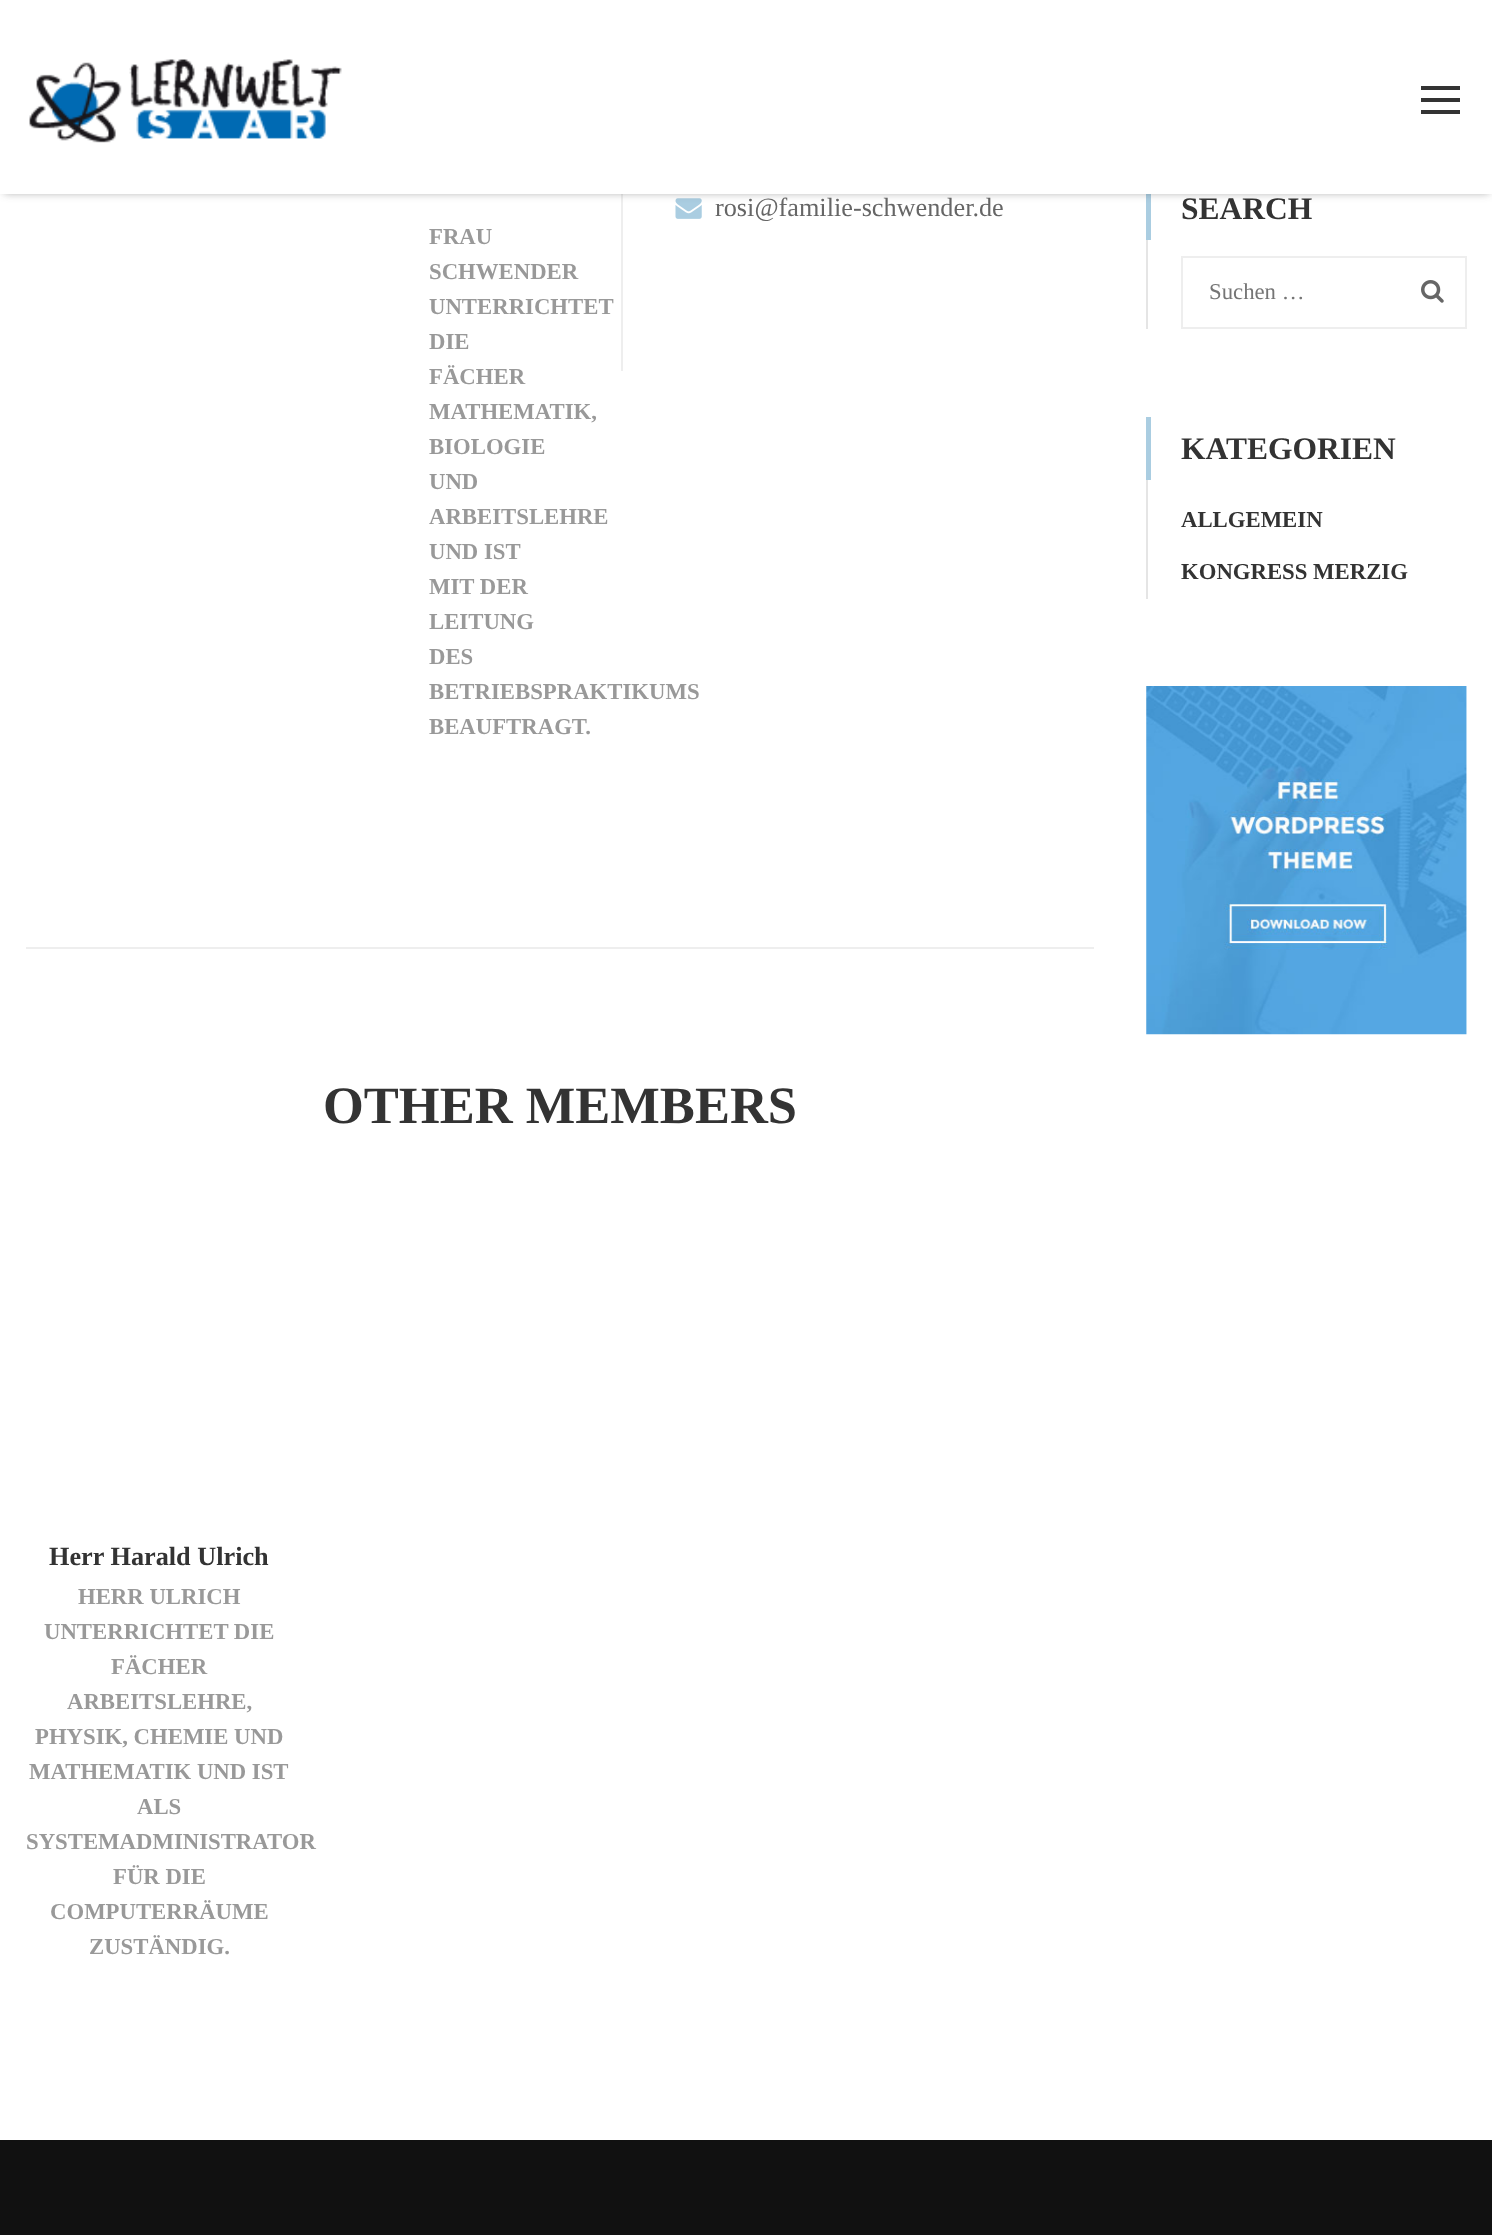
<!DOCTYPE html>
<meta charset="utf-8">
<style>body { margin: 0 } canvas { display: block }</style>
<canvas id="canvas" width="1492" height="2235"></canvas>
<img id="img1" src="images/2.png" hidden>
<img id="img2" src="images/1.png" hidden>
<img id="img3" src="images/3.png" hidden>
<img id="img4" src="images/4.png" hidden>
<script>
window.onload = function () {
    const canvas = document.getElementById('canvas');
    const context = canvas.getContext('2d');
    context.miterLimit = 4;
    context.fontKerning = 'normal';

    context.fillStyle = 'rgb(255, 255, 255)';
    context.fillRect(0, 0, 1492, 2235);
    context.fillStyle = 'rgb(238, 238, 238)';
    context.fillRect(621, 194, 2, 177);
    context.drawImage(document.getElementById('img1'), 675, 198, 27, 21);
    context.fillStyle = 'rgb(170, 205, 225)';
    context.fillRect(1146, 194, 5, 46);
    context.fillStyle = 'rgba(42, 42, 42, 0.4)';
    context.filter = 'blur(4.5px)';
    context.beginPath();
    context.rect(4, 5, 1485, 188);
    context.fill();
    context.filter = 'none';
    context.fillStyle = 'rgb(255, 255, 255)';
    context.fillRect(0, 0, 1492, 194);
    context.drawImage(document.getElementById('img2'), 29, 59, 313, 84);
    context.fillStyle = 'rgb(51, 51, 51)';
    context.fillRect(1421, 86, 39, 4);
    context.fillRect(1421, 98, 39, 4);
    context.fillRect(1421, 110, 39, 4);
    context.fillStyle = 'rgb(238, 238, 238)';
    context.fillRect(26, 947, 1068, 2);
    context.fillStyle = 'rgb(229, 229, 229)';
    context.fillRect(1146, 240, 2, 89);
    context.strokeStyle = 'rgb(238, 238, 238)';
    context.lineWidth = 2;
    context.strokeRect(1182, 257, 284, 71);
    context.drawImage(document.getElementById('img3'), 1421, 280, 23, 23);
    context.fillStyle = 'rgb(170, 205, 225)';
    context.fillRect(1146, 417, 5, 63);
    context.fillStyle = 'rgb(229, 229, 229)';
    context.fillRect(1146, 480, 2, 119);
    context.drawImage(document.getElementById('img4'), 1146, 686, 321, 349);
    context.fillStyle = 'rgb(17, 17, 17)';
    context.fillRect(0, 2140, 1492, 95);
    context.font = '26.25px Liberation Serif';
    context.fillStyle = 'rgb(102, 102, 102)';
    context.fillText('rosi@familie-schwender.de', 715, 216);
    context.font = 'bold 22.75px Liberation Serif';
    context.fillStyle = 'rgb(153, 153, 153)';
    context.fillText('FRAU', 429, 244);
    context.fillText('SCHWENDER', 429, 279);
    context.fillText('UNTERRICHTET', 429, 314);
    context.fillText('DIE', 429, 349);
    context.fillText('FÄCHER', 429, 384);
    context.fillText('MATHEMATIK,', 429, 419);
    context.fillText('BIOLOGIE', 429, 454);
    context.fillText('UND', 429, 489);
    context.fillText('ARBEITSLEHRE', 429, 524);
    context.fillText('UND IST', 429, 559);
    context.fillText('MIT DER', 429, 594);
    context.fillText('LEITUNG', 429, 629);
    context.fillText('DES', 429, 664);
    context.fillText('BETRIEBSPRAKTIKUMS', 429, 699);
    context.fillText('BEAUFTRAGT.', 429, 734);
    context.font = 'bold 52.5px Liberation Serif';
    context.fillStyle = 'rgb(51, 51, 51)';
    context.fillText('OTHER MEMBERS', 323, 1123);
    context.font = 'bold 26.25px Liberation Serif';
    context.fillText('Herr Harald Ulrich', 49, 1565);
    context.font = 'bold 22.75px Liberation Serif';
    context.fillStyle = 'rgb(153, 153, 153)';
    context.fillText('HERR ULRICH', 78, 1604);
    context.fillText('UNTERRICHTET DIE', 44, 1639);
    context.fillText('FÄCHER', 111, 1674);
    context.fillText('ARBEITSLEHRE,', 67, 1709);
    context.fillText('PHYSIK, CHEMIE UND', 35, 1744);
    context.fillText('MATHEMATIK UND IST', 29, 1779);
    context.fillText('ALS', 137, 1814);
    context.fillText('SYSTEMADMINISTRATOR', 26, 1849);
    context.fillText('FÜR DIE', 113, 1884);
    context.fillText('COMPUTERRÄUME', 50, 1919);
    context.fillText('ZUSTÄNDIG.', 89, 1954);
    context.font = 'bold 31.5px Liberation Serif';
    context.fillStyle = 'rgb(51, 51, 51)';
    context.fillText('SEARCH', 1181, 219);
    context.font = '22.75px Liberation Serif';
    context.fillStyle = 'rgb(117, 117, 117)';
    context.fillText('Suchen …', 1209, 299);
    context.font = 'bold 31.5px Liberation Serif';
    context.fillStyle = 'rgb(51, 51, 51)';
    context.fillText('KATEGORIEN', 1181, 459);
    context.font = 'bold 22.75px Liberation Serif';
    context.fillText('ALLGEMEIN', 1181, 527);
    context.fillText('KONGRESS MERZIG', 1181, 579);
};
</script>
